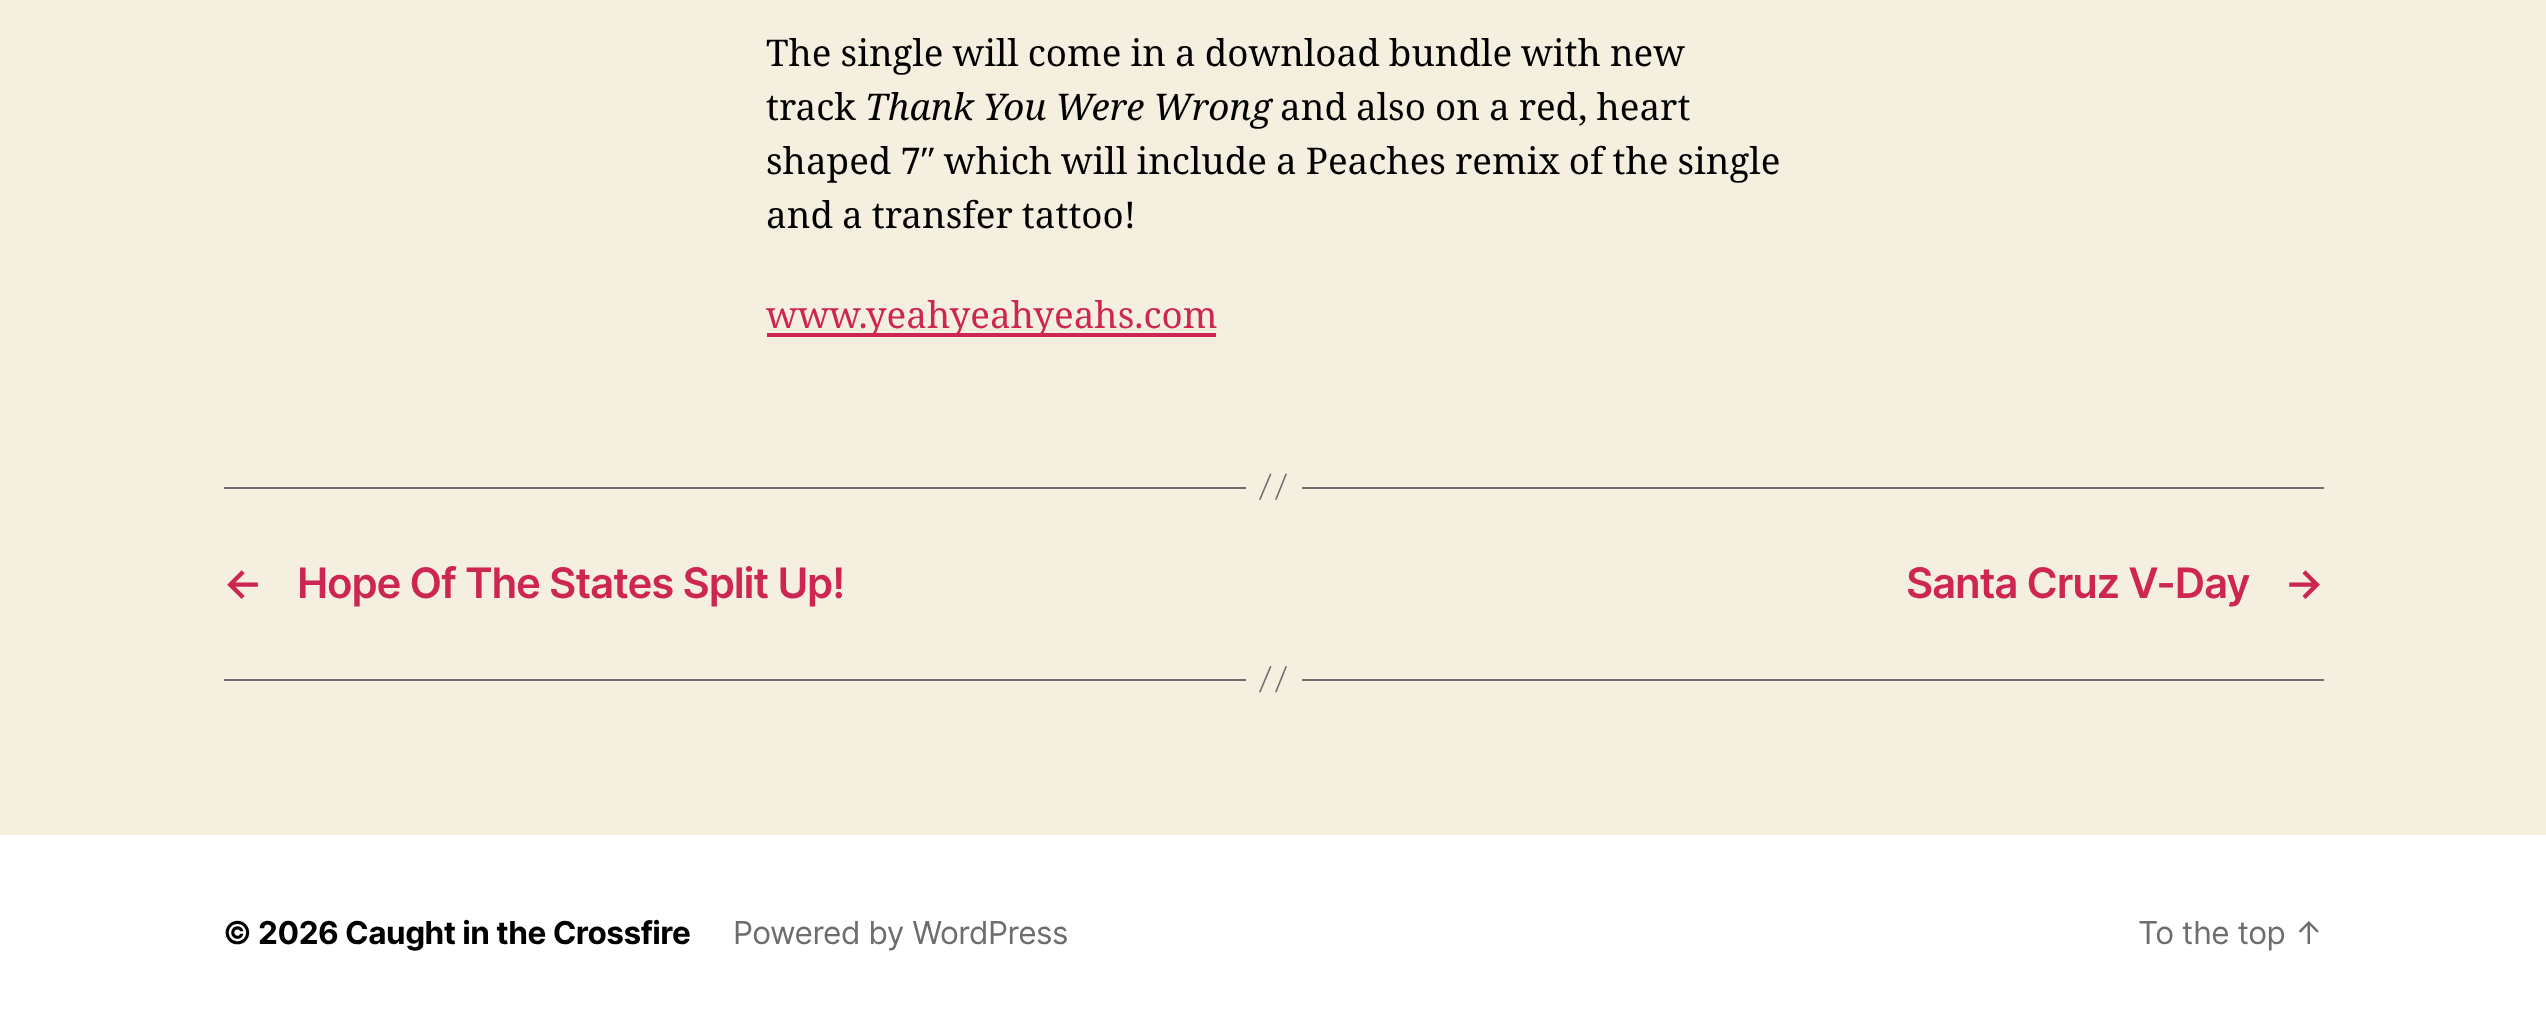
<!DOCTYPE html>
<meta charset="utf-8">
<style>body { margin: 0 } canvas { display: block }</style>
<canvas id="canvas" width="2546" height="1031"></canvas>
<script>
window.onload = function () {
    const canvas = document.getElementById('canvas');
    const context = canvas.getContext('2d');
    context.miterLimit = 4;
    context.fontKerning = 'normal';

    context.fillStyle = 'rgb(245, 239, 224)';
    context.fillRect(0, 0, 2546, 1031);
    context.fillStyle = 'rgb(205, 38, 83)';
    context.fillRect(767, 333, 449, 4);
    context.fillStyle = 'rgb(109, 109, 109)';
    context.fillRect(1302, 487, 1022, 2);
    context.fillRect(224, 487, 1022, 2);
    context.beginPath();
    context.moveTo(1270, 473.5);
    context.lineTo(1271.5, 474);
    context.lineTo(1260.5, 500);
    context.lineTo(1259, 499.5);
    context.closePath();
    context.moveTo(1285.5, 473.5);
    context.lineTo(1287, 474);
    context.lineTo(1276.5, 500);
    context.lineTo(1275, 499.5);
    context.closePath();
    context.fill();
    context.fillRect(1302, 679, 1022, 2);
    context.fillRect(224, 679, 1022, 2);
    context.beginPath();
    context.moveTo(1270, 666);
    context.lineTo(1271.5, 666.5);
    context.lineTo(1260.5, 692.5);
    context.lineTo(1259, 692);
    context.closePath();
    context.moveTo(1285.5, 666);
    context.lineTo(1287, 666.5);
    context.lineTo(1276.5, 692.5);
    context.lineTo(1275, 692);
    context.closePath();
    context.fill();
    context.fillStyle = 'rgb(255, 255, 255)';
    context.fillRect(0, 835, 2546, 196);
    context.wordSpacing = '-0.5px';
    context.font = '36.75px Noto Serif';
    context.fillStyle = 'rgb(0, 0, 0)';
    context.fillText('The single will come in a download bundle with new', 766, 66);
    context.wordSpacing = '0px';
    context.fillText('track', 766, 120);
    context.wordSpacing = '-0.5px';
    context.font = 'italic 36.75px Noto Serif';
    context.fillText('Thank You Were Wrong', 865, 120);
    context.font = '36.75px Noto Serif';
    context.fillText('and also on a red, heart', 1280, 120);
    context.fillText('shaped 7″ which will include a Peaches remix of the single', 766, 174);
    context.fillText('and a transfer tattoo!', 766, 228);
    context.wordSpacing = '0px';
    context.fillStyle = 'rgb(205, 38, 83)';
    context.fillText('www.yeahyeahyeahs.com', 766, 328);
    context.letterSpacing = '-1.15px';
    context.font = '600 42px Inter';
    context.fillText('←', 223, 598);
    context.fillText('Hope Of The States Split Up!', 297, 598);
    context.fillText('Santa Cruz V-Day', 1906, 598);
    context.fillText('→', 2284, 598);
    context.letterSpacing = '-0.5px';
    context.font = 'bold 31.5px Inter';
    context.fillStyle = 'rgb(0, 0, 0)';
    context.fillText('© 2026 Caught in the Crossfire', 223, 944);
    context.font = '31.5px Inter';
    context.fillStyle = 'rgb(109, 109, 109)';
    context.fillText('Powered by WordPress', 733, 944);
    context.fillText('To the top ↑', 2138, 944);
};
</script>
